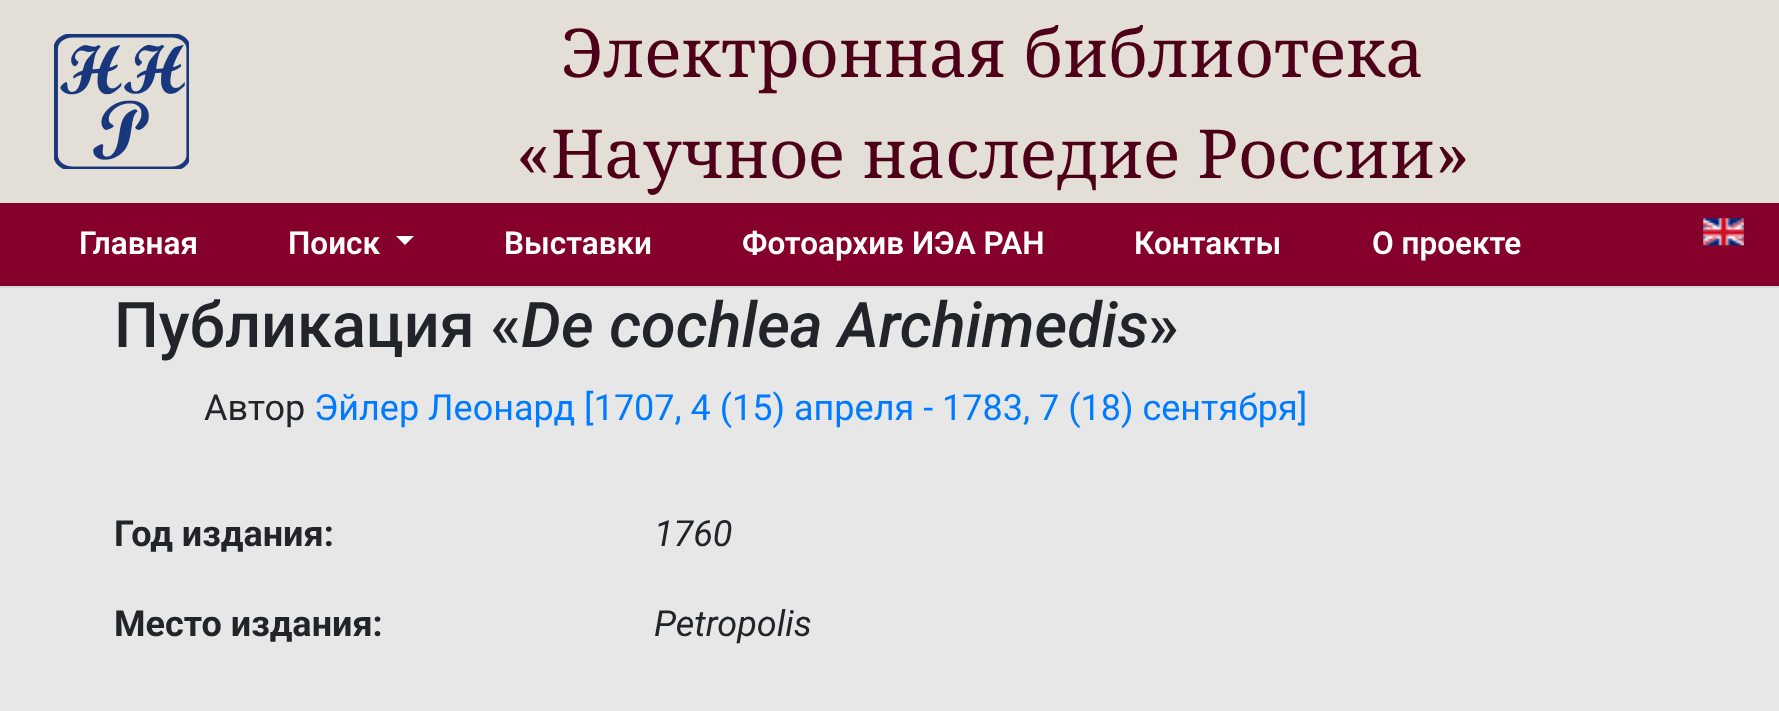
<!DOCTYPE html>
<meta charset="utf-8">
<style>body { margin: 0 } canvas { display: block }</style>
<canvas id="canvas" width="1779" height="711"></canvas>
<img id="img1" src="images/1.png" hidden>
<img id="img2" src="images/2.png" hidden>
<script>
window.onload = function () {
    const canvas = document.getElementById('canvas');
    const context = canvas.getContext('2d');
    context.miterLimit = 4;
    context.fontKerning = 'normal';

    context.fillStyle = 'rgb(231, 231, 231)';
    context.fillRect(0, 0, 1779, 711);
    context.fillStyle = 'rgb(227, 222, 214)';
    context.fillRect(0, 0, 1779, 203);
    context.drawImage(document.getElementById('img1'), 54, 34, 135, 135);
    context.fillStyle = 'rgb(133, 0, 43)';
    context.fillRect(0, 203, 1779, 83);
    context.fillStyle = 'rgb(215, 218, 221)';
    context.fillRect(0, 286, 1779, 2);
    context.fillStyle = 'rgb(255, 255, 255)';
    context.beginPath();
    context.moveTo(396, 236);
    context.lineTo(414, 236);
    context.lineTo(405, 245);
    context.closePath();
    context.fill();
    context.drawImage(document.getElementById('img2'), 1703, 218, 41, 28);
    context.font = '67.5px Noto Serif';
    context.fillStyle = 'rgb(79, 0, 25)';
    context.fillText('Электронная библиотека', 561, 77);
    context.fillText('«Научное наследие России»', 516, 178);
    context.font = '600 31.5px Roboto';
    context.fillStyle = 'rgb(255, 255, 255)';
    context.fillText('Главная', 79, 254);
    context.fillText('Поиск', 288, 254);
    context.fillText('Выставки', 504, 254);
    context.fillText('Фотоархив ИЭА РАН', 742, 254);
    context.fillText('Контакты', 1134, 254);
    context.fillText('О проекте', 1372, 254);
    context.font = '500 63px Roboto';
    context.fillStyle = 'rgb(33, 37, 41)';
    context.fillText('Публикация «', 114, 347);
    context.font = 'italic 500 63px Roboto';
    context.fillText('De cochlea Archimedis', 521, 347);
    context.font = '500 63px Roboto';
    context.fillText('»', 1148, 347);
    context.font = '36px Roboto';
    context.fillText('Автор', 204, 420);
    context.fillStyle = 'rgb(0, 123, 255)';
    context.fillText('Эйлер Леонард [1707, 4 (15) апреля - 1783, 7 (18) сентября]', 314, 420);
    context.font = 'bold 36px Roboto';
    context.fillStyle = 'rgb(33, 37, 41)';
    context.fillText('Год издания:', 114, 546);
    context.font = 'italic 36px Roboto';
    context.fillText('1760', 654, 546);
    context.font = 'bold 36px Roboto';
    context.fillText('Место издания:', 114, 636);
    context.font = 'italic 36px Roboto';
    context.fillText('Petropolis', 654, 636);
};
</script>
